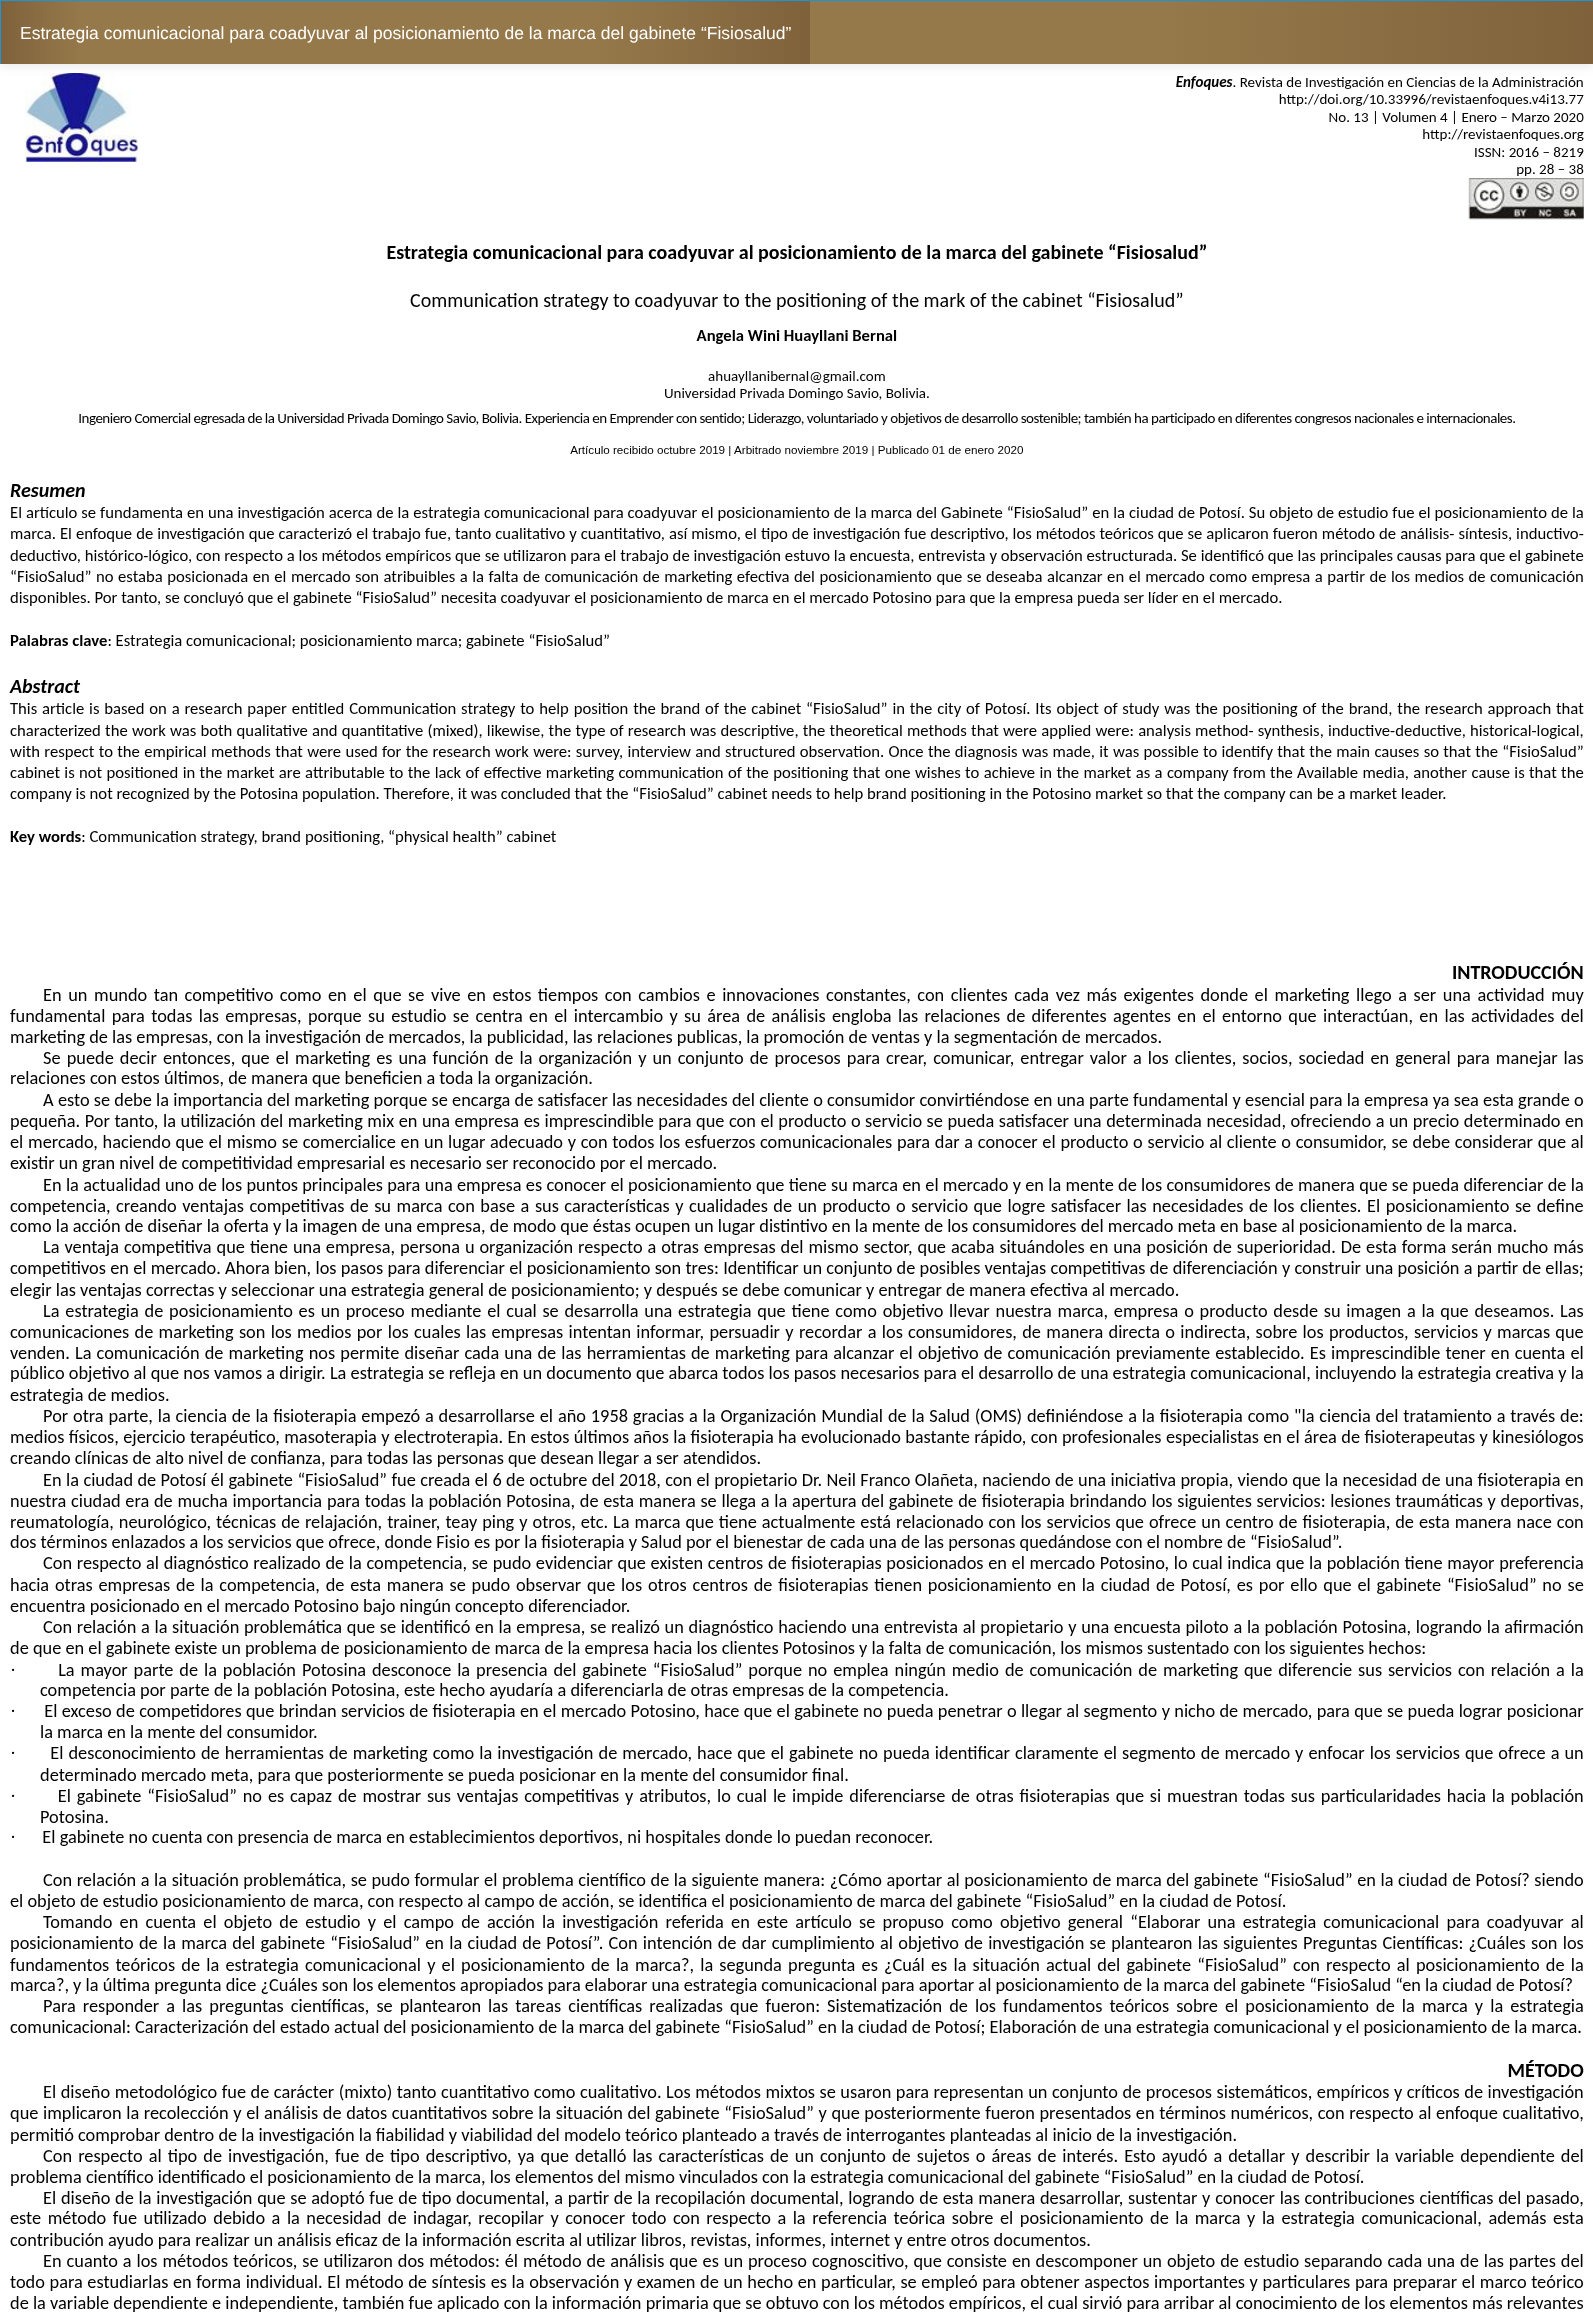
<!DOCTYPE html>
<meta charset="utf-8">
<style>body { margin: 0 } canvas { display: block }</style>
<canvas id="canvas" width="1593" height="2316"></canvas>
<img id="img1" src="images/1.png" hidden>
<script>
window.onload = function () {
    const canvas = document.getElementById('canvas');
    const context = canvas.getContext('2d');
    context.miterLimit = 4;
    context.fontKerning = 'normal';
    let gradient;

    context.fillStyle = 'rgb(255, 255, 255)';
    context.fillRect(0, 0, 1593, 2316);
    context.drawImage(document.getElementById('img1'), 9, 73, 1575, 2239);
    context.fillStyle = 'rgba(0, 0, 0, 0.1)';
    context.filter = 'blur(6px)';
    context.beginPath();
    context.rect(0, 1, 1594, 64);
    context.fill();
    context.filter = 'none';
    gradient = context.createLinearGradient(1.2, 33, 1593, 32);
    gradient.addColorStop(0, 'rgb(127, 98, 59)');
    gradient.addColorStop(0.1, 'rgb(150, 121, 74)');
    gradient.addColorStop(0.73, 'rgb(150, 121, 74)');
    gradient.addColorStop(1, 'rgb(127, 98, 59)');
    context.fillStyle = gradient;
    context.fillRect(810, 1, 783, 63);
    context.fillStyle = 'rgb(25, 149, 220)';
    context.fillRect(0, 0, 1593, 1);
    context.fillRect(0, 0, 1, 64);
    gradient = context.createLinearGradient(1.2, 33, 810, 32);
    gradient.addColorStop(0, 'rgb(127, 98, 59)');
    gradient.addColorStop(0.1, 'rgb(150, 121, 74)');
    gradient.addColorStop(0.73, 'rgb(150, 121, 74)');
    gradient.addColorStop(1, 'rgb(127, 98, 59)');
    context.fillStyle = gradient;
    context.fillRect(1, 1, 809, 63);
    context.font = '17.5px Liberation Sans';
    context.fillStyle = 'rgb(255, 255, 255)';
    context.fillText('Estrategia comunicacional para coadyuvar al posicionamiento de la marca del gabinete “Fisiosalud”', 20, 39);
};
</script>
